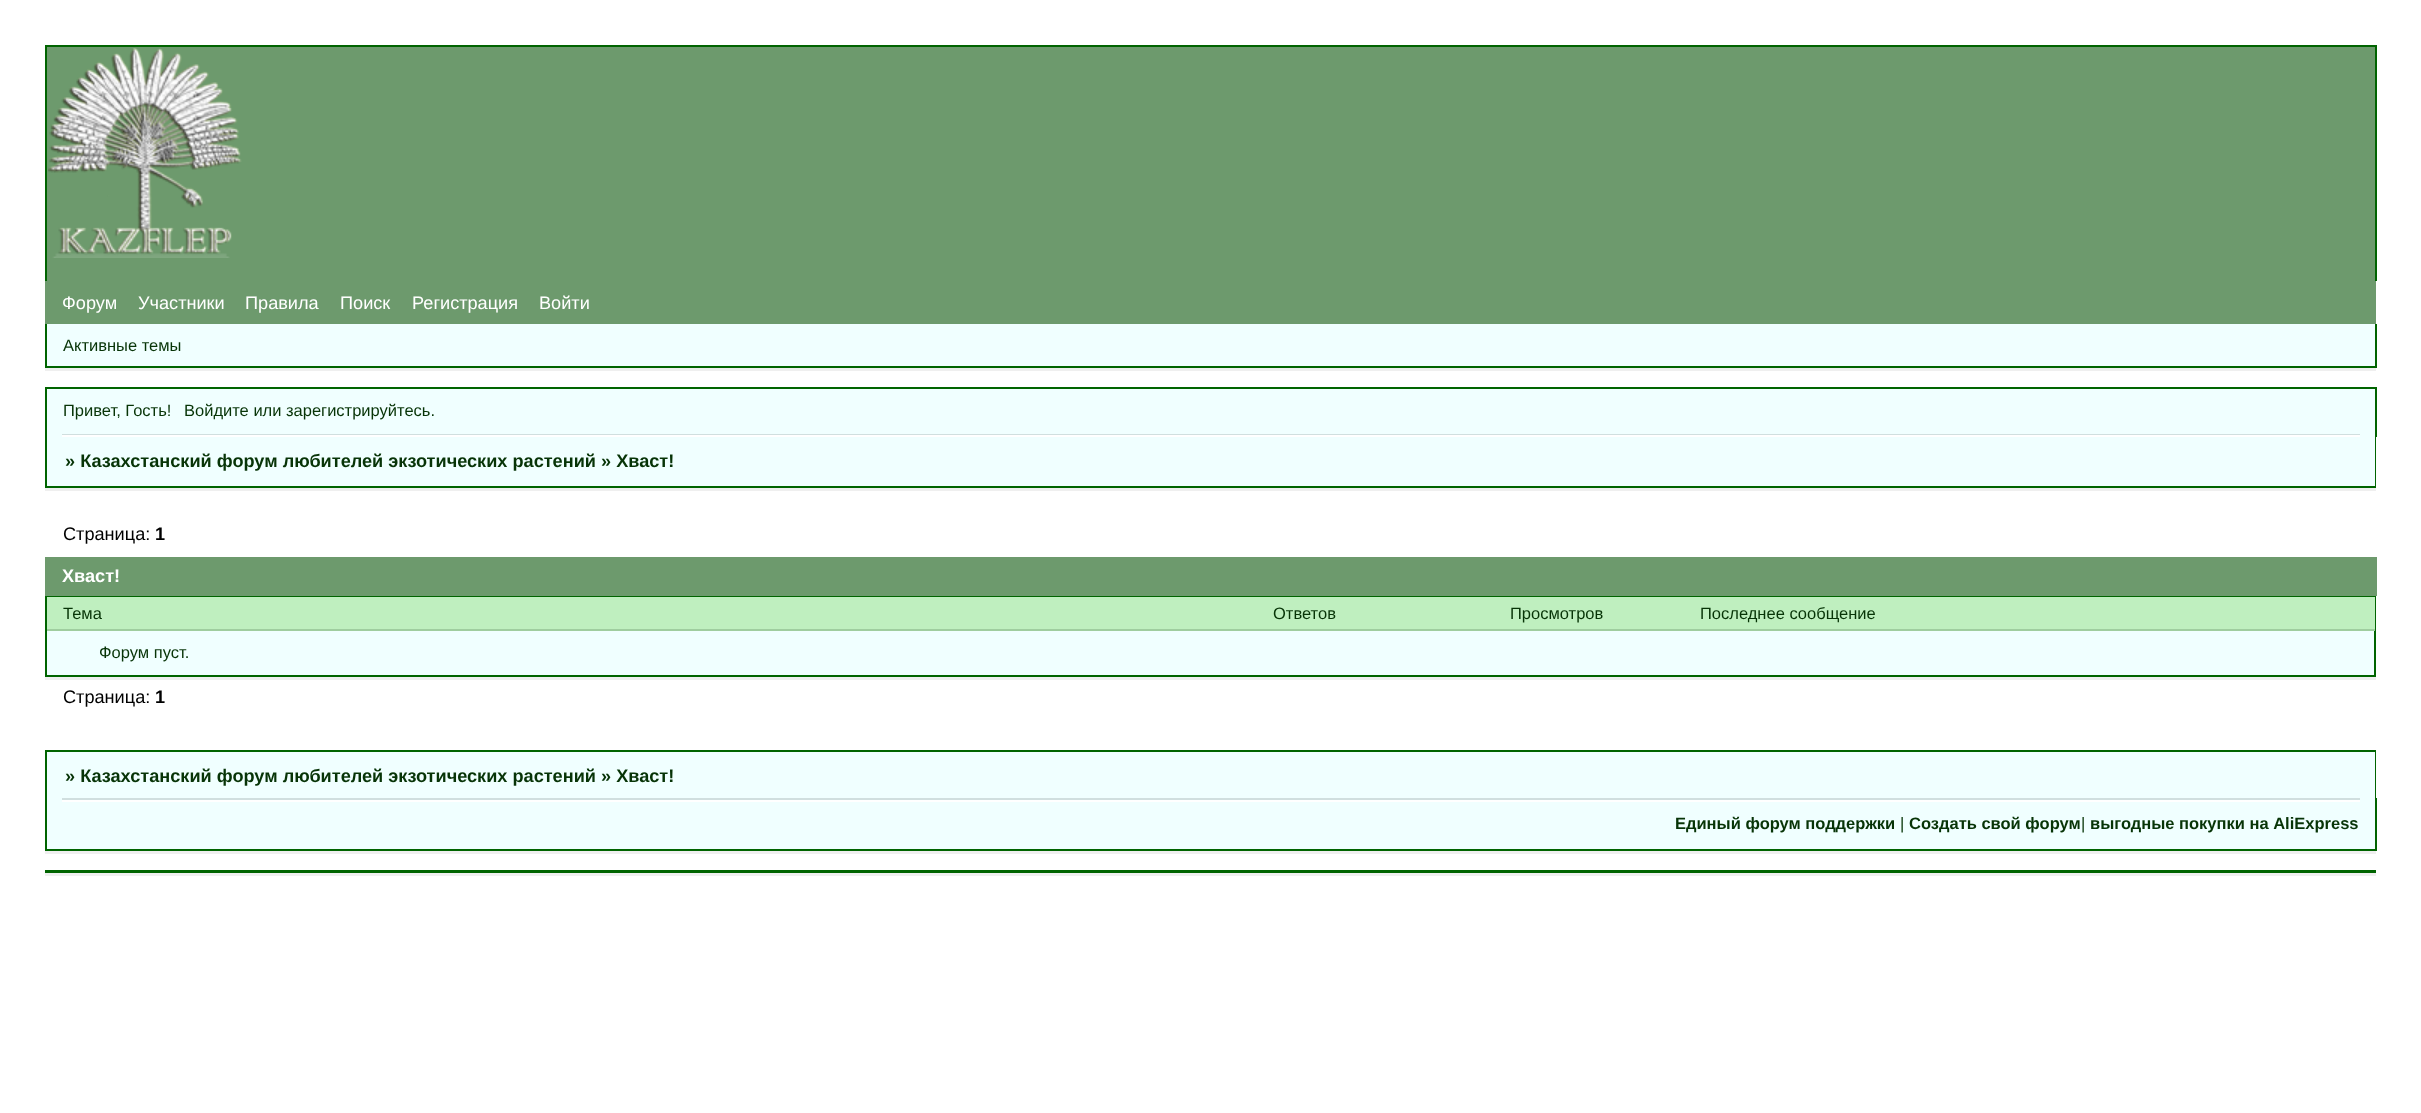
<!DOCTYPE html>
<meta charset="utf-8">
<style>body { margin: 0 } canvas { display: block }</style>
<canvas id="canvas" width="2421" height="1113"></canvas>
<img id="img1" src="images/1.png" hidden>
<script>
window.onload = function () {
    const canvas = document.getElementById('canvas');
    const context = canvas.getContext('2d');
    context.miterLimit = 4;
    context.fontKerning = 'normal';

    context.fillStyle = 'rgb(255, 255, 255)';
    context.fillRect(0, 0, 2421, 1113);
    context.fillStyle = 'rgb(109, 154, 109)';
    context.fillRect(47, 47, 2328, 234);
    context.fillStyle = 'rgb(0, 100, 0)';
    context.fillRect(45, 45, 2331, 2);
    context.fillRect(2375, 45, 2, 236);
    context.fillRect(45, 45, 2, 236);
    context.drawImage(document.getElementById('img1'), 48, 48, 194, 210);
    context.fillStyle = 'rgb(109, 154, 109)';
    context.fillRect(45, 281, 2331, 43);
    context.fillStyle = 'rgb(239, 239, 239)';
    context.fillRect(45, 368, 2331, 3);
    context.fillStyle = 'rgb(240, 255, 255)';
    context.fillRect(47, 324, 2328, 42);
    context.fillStyle = 'rgb(0, 100, 0)';
    context.fillRect(2375, 324, 2, 44);
    context.fillRect(45, 366, 2331, 2);
    context.fillRect(45, 324, 2, 44);
    context.fillStyle = 'rgb(240, 255, 255)';
    context.fillRect(47, 389, 2328, 97);
    context.fillStyle = 'rgb(0, 100, 0)';
    context.fillRect(45, 387, 2331, 2);
    context.fillRect(2375, 387, 2, 50);
    context.fillRect(45, 387, 2, 50);
    context.fillStyle = 'rgb(208, 223, 223)';
    context.fillRect(62, 434, 2298, 1);
    context.fillStyle = 'rgb(255, 255, 255)';
    context.fillRect(62, 435, 2298, 2);
    context.fillStyle = 'rgb(239, 239, 239)';
    context.fillRect(45, 488, 2331, 3);
    context.fillStyle = 'rgb(0, 100, 0)';
    context.fillRect(2375, 434, 1, 54);
    context.fillRect(45, 486, 2331, 2);
    context.fillRect(45, 434, 2, 54);
    context.fillStyle = 'rgb(109, 154, 109)';
    context.fillRect(45, 557, 2332, 39);
    context.fillStyle = 'rgb(239, 239, 239)';
    context.fillRect(45, 677, 2331, 3);
    context.fillStyle = 'rgb(240, 255, 255)';
    context.fillRect(47, 631, 2327, 44);
    context.strokeStyle = 'rgb(0, 100, 0)';
    context.lineWidth = 2;
    context.strokeRect(46, 597, 2329, 79);
    context.fillStyle = 'rgb(191, 239, 191)';
    context.fillRect(47, 597, 2328, 32);
    context.fillStyle = 'rgb(159, 205, 159)';
    context.fillRect(47, 629, 2328, 2);
    context.fillStyle = 'rgb(0, 100, 0)';
    context.fillRect(45, 750, 2331, 2);
    context.fillRect(2375, 798, 2, 53);
    context.fillRect(2375, 750, 1, 51);
    context.fillRect(45, 849, 2331, 2);
    context.fillRect(45, 798, 2, 53);
    context.fillRect(45, 750, 2, 51);
    context.fillStyle = 'rgb(240, 255, 255)';
    context.fillRect(47, 752, 2328, 97);
    context.fillStyle = 'rgb(208, 223, 223)';
    context.fillRect(62, 798, 2298, 2);
    context.fillStyle = 'rgb(255, 255, 255)';
    context.fillRect(62, 800, 2298, 2);
    context.fillStyle = 'rgb(239, 239, 239)';
    context.fillRect(45, 851, 2331, 3);
    context.fillRect(45, 873, 2331, 3);
    context.fillStyle = 'rgb(0, 100, 0)';
    context.fillRect(45, 870, 2331, 3);
    context.font = '18.15px Liberation Sans';
    context.fillStyle = 'rgb(255, 255, 255)';
    context.fillText('Форум', 62, 309);
    context.fillText('Участники', 138, 309);
    context.fillText('Правила', 245, 309);
    context.fillText('Поиск', 340, 309);
    context.fillText('Регистрация', 412, 309);
    context.fillText('Войти', 539, 309);
    context.font = '16.5px Liberation Sans';
    context.fillStyle = 'rgb(7, 52, 7)';
    context.fillText('Активные темы', 63, 351);
    context.fillText('Привет, Гость!', 63, 416);
    context.fillText('Войдите или зарегистрируйтесь.', 184, 416);
    context.font = 'bold 18.15px Liberation Sans';
    context.fillText('» Казахстанский форум любителей экзотических растений » Хваст!', 65, 467);
    context.font = '18.15px Liberation Sans';
    context.fillStyle = 'rgb(0, 0, 0)';
    context.fillText('Страница:', 63, 540);
    context.font = 'bold 18.15px Liberation Sans';
    context.fillText('1', 155, 540);
    context.fillStyle = 'rgb(255, 255, 255)';
    context.fillText('Хваст!', 62, 582);
    context.font = '16.5px Liberation Sans';
    context.fillStyle = 'rgb(7, 52, 7)';
    context.fillText('Тема', 63, 619);
    context.fillText('Ответов', 1273, 619);
    context.fillText('Просмотров', 1510, 619);
    context.fillText('Последнее сообщение', 1700, 619);
    context.fillText('Форум пуст.', 99, 658);
    context.font = '18.15px Liberation Sans';
    context.fillStyle = 'rgb(0, 0, 0)';
    context.fillText('Страница:', 63, 703);
    context.font = 'bold 18.15px Liberation Sans';
    context.fillText('1', 155, 703);
    context.fillStyle = 'rgb(7, 52, 7)';
    context.fillText('» Казахстанский форум любителей экзотических растений » Хваст!', 65, 782);
    context.font = 'bold 16.5px Liberation Sans';
    context.fillText('Единый форум поддержки', 1675, 829);
    context.font = '16.5px Liberation Sans';
    context.fillText('|', 1900, 829);
    context.font = 'bold 16.5px Liberation Sans';
    context.fillText('Создать свой форум', 1909, 829);
    context.font = '16.5px Liberation Sans';
    context.fillText('|', 2081, 829);
    context.font = 'bold 16.5px Liberation Sans';
    context.fillText('выгодные покупки на AliExpress', 2090, 829);
};
</script>
